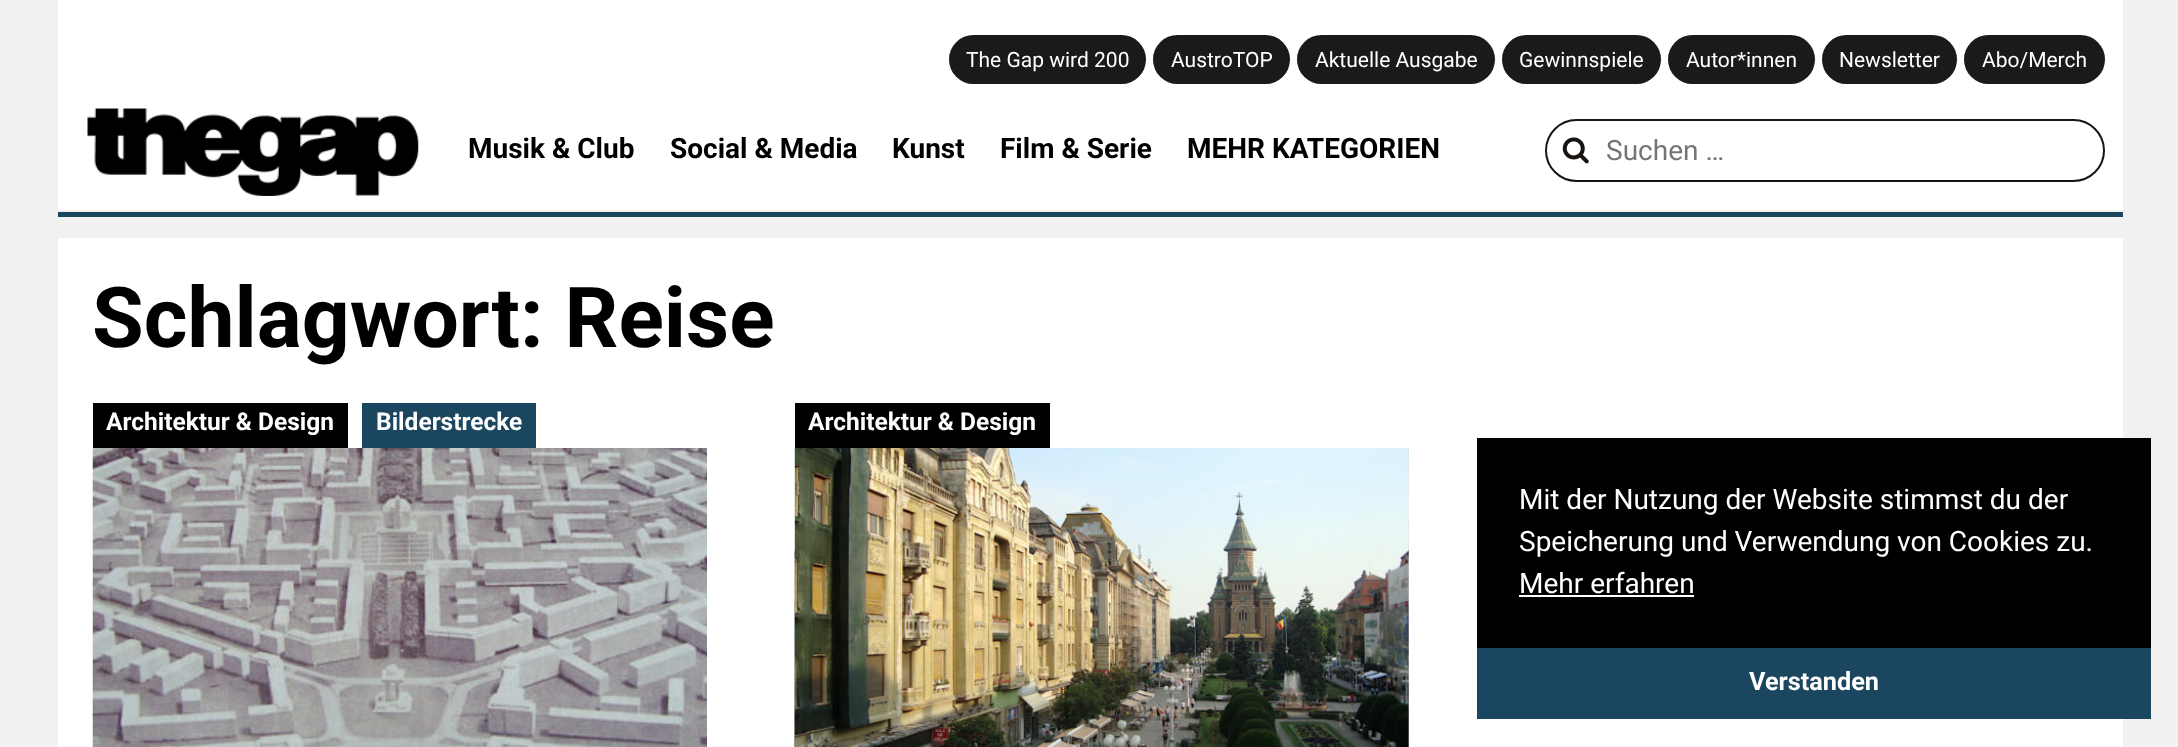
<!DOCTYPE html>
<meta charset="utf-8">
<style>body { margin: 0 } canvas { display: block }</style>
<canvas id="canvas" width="2178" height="747"></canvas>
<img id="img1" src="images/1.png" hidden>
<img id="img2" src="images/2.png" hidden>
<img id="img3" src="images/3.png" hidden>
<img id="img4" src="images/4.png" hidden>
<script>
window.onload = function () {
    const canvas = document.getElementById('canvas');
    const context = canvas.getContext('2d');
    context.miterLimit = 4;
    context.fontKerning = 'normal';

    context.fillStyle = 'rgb(241, 241, 241)';
    context.fillRect(0, 0, 2178, 747);
    context.fillStyle = 'rgb(26, 70, 95)';
    context.fillRect(58, 212, 2065, 5);
    context.fillStyle = 'rgb(255, 255, 255)';
    context.fillRect(58, 0, 2065, 210);
    context.fillStyle = 'rgb(26, 26, 26)';
    context.beginPath();
    context.roundRect(949, 35, 197, 49, 24.5);
    context.fill();
    context.beginPath();
    context.roundRect(1153, 35, 137, 49, 24.5);
    context.fill();
    context.beginPath();
    context.roundRect(1297, 35, 198, 49, 24.5);
    context.fill();
    context.beginPath();
    context.roundRect(1502, 35, 159, 49, 24.5);
    context.fill();
    context.beginPath();
    context.roundRect(1668, 35, 147, 49, 24.5);
    context.fill();
    context.beginPath();
    context.roundRect(1822, 35, 135, 49, 24.5);
    context.fill();
    context.beginPath();
    context.roundRect(1964, 35, 141, 49, 24.5);
    context.fill();
    context.drawImage(document.getElementById('img1'), 87, 108, 332, 88);
    context.beginPath();
    context.roundRect(1546, 120, 558, 61, 30.5);
    context.strokeStyle = 'rgb(23, 20, 18)';
    context.lineWidth = 2;
    context.stroke();
    context.drawImage(document.getElementById('img2'), 1562, 137, 27, 27);
    context.fillStyle = 'rgb(255, 255, 255)';
    context.fillRect(58, 238, 2065, 509);
    context.fillStyle = 'rgb(0, 0, 0)';
    context.fillRect(93, 403, 255, 45);
    context.fillStyle = 'rgb(26, 70, 95)';
    context.fillRect(362, 403, 174, 45);
    context.drawImage(document.getElementById('img3'), 92, 448, 615, 299);
    context.fillStyle = 'rgb(0, 0, 0)';
    context.fillRect(795, 403, 255, 45);
    context.drawImage(document.getElementById('img4'), 794, 448, 615, 299);
    context.fillRect(1477, 438, 674, 210);
    context.fillStyle = 'rgb(255, 255, 255)';
    context.fillRect(1519, 595, 175, 2);
    context.fillStyle = 'rgb(26, 70, 95)';
    context.fillRect(1477, 648, 674, 71);
    context.font = '21px Roboto';
    context.fillStyle = 'rgb(255, 255, 255)';
    context.fillText('The Gap wird 200', 966, 67);
    context.fillText('AustroTOP', 1171, 67);
    context.fillText('Aktuelle Ausgabe', 1315, 67);
    context.fillText('Gewinnspiele', 1519, 67);
    context.fillText('Autor*innen', 1686, 67);
    context.fillText('Newsletter', 1839, 67);
    context.fillText('Abo/Merch', 1982, 67);
    context.font = 'bold 28px Roboto';
    context.fillStyle = 'rgb(0, 0, 0)';
    context.fillText('Musik & Club', 468, 158);
    context.fillText('Social & Media', 670, 158);
    context.fillText('Kunst', 892, 158);
    context.fillText('Film & Serie', 1000, 158);
    context.fillText('MEHR KATEGORIEN', 1187, 158);
    context.font = '28px Roboto';
    context.fillStyle = 'rgb(117, 117, 117)';
    context.fillText('Suchen …', 1606, 160);
    context.font = 'bold 84px Roboto';
    context.fillStyle = 'rgb(0, 0, 0)';
    context.fillText('Schlagwort: Reise', 92, 347);
    context.font = 'bold 24.5px Roboto';
    context.fillStyle = 'rgb(255, 255, 255)';
    context.fillText('Architektur & Design', 106, 430);
    context.fillText('Bilderstrecke', 376, 430);
    context.fillText('Architektur & Design', 808, 430);
    context.font = '28px Roboto';
    context.fillText('Mit der Nutzung der Website stimmst du der', 1519, 509);
    context.fillText('Speicherung und Verwendung von Cookies zu.', 1519, 551);
    context.fillText('Mehr erfahren', 1519, 593);
    context.font = 'bold 25.25px Roboto';
    context.fillText('Verstanden', 1749, 690);
};
</script>
